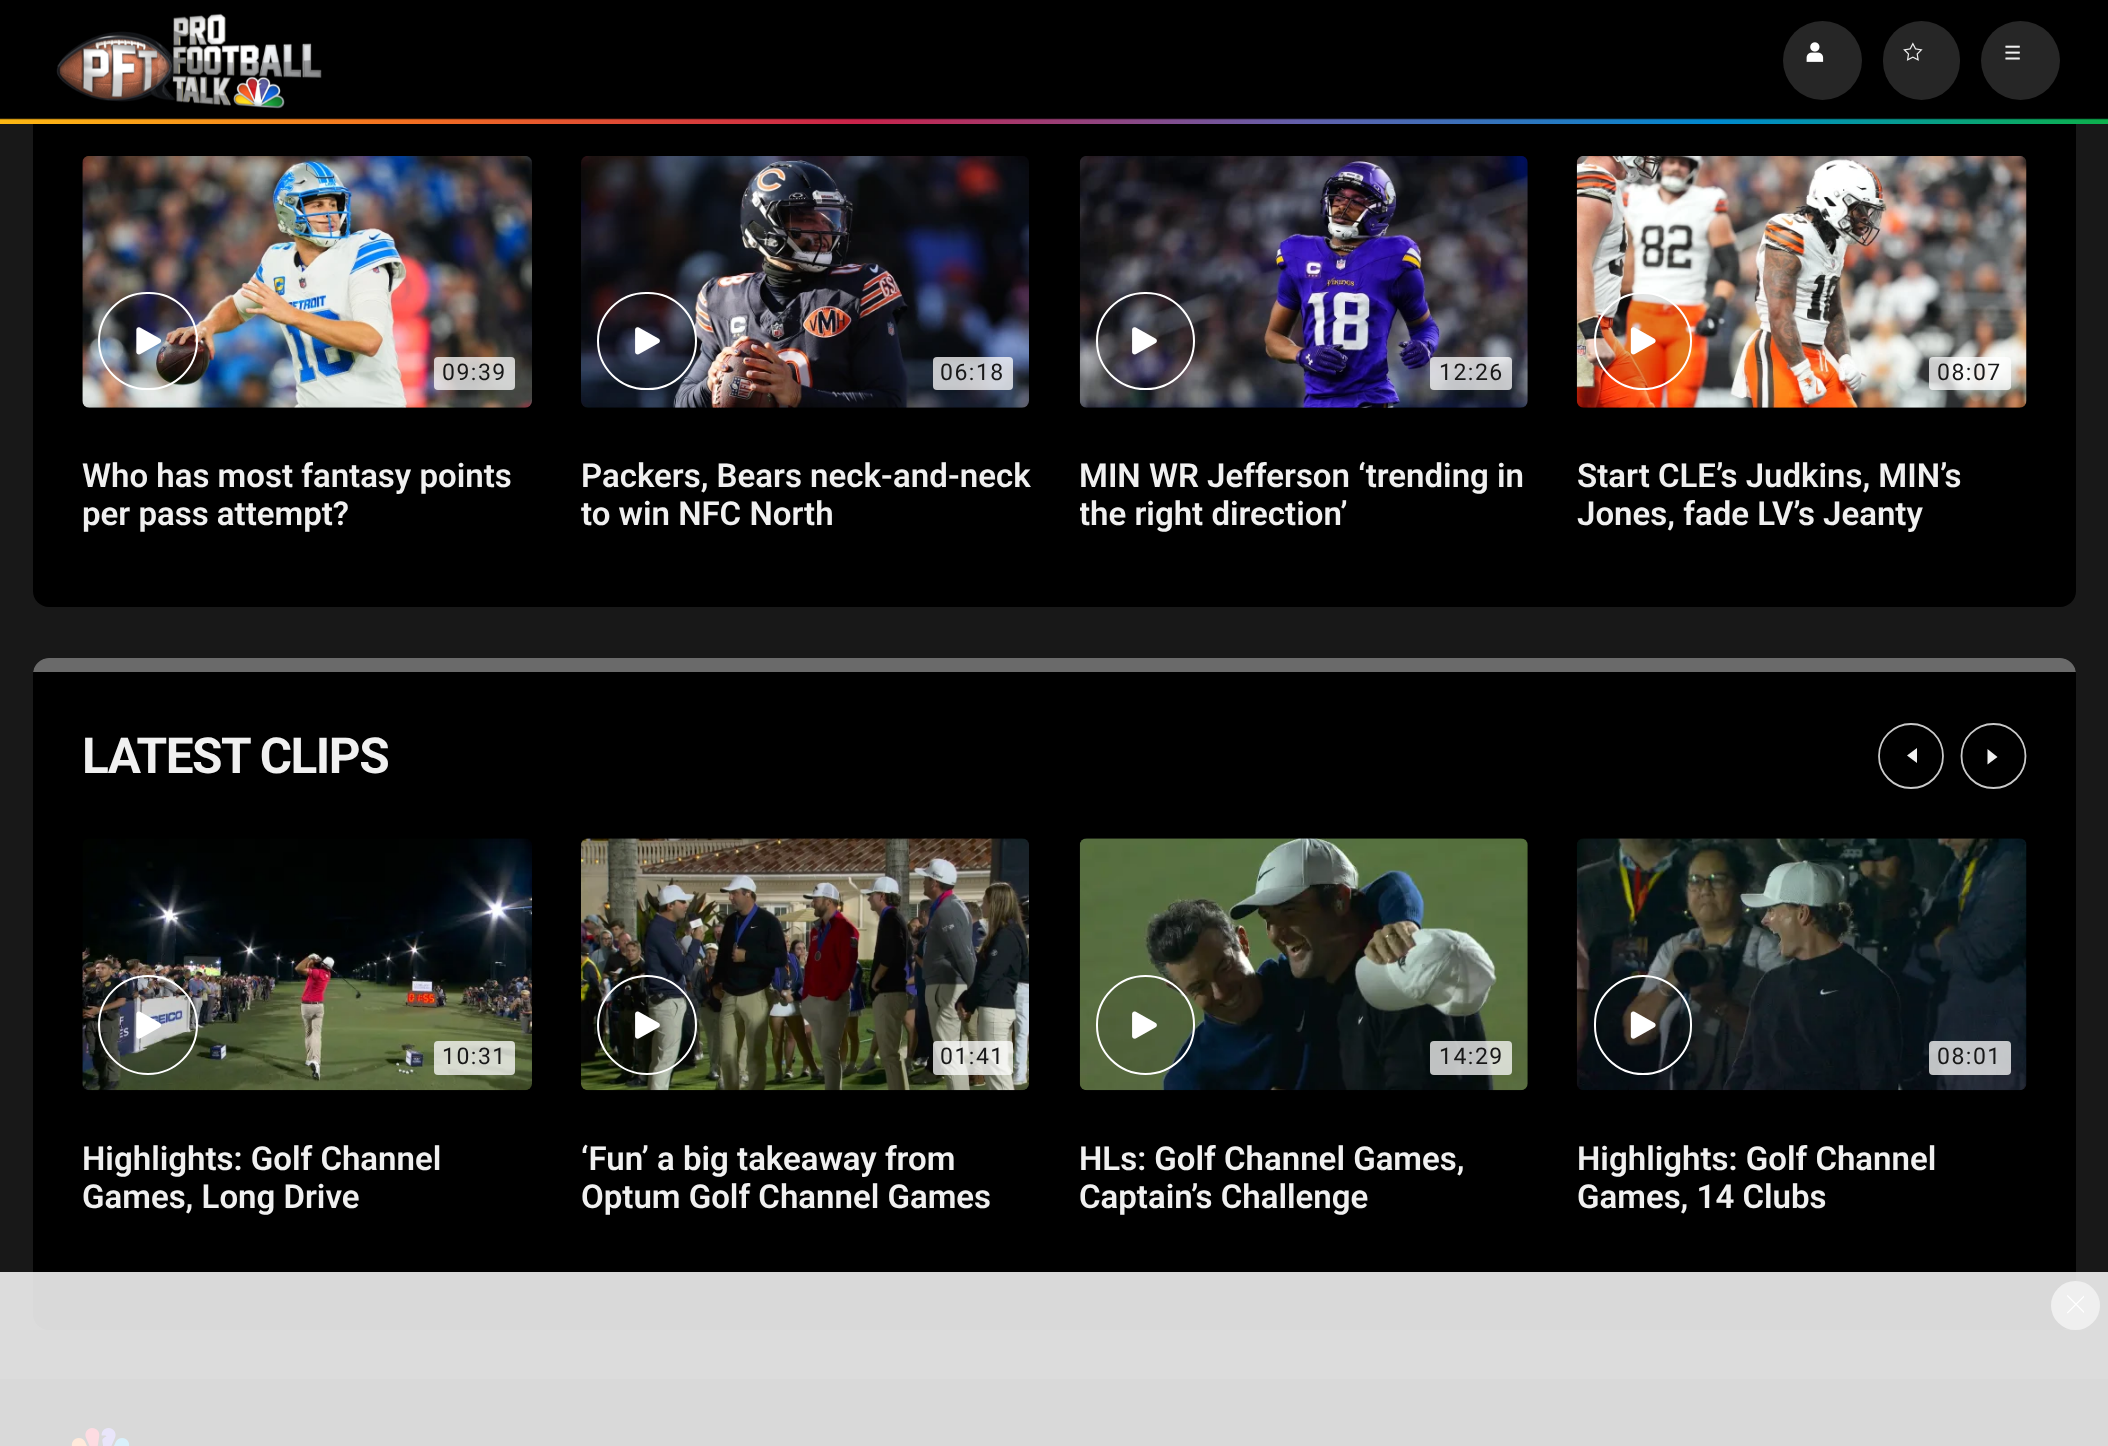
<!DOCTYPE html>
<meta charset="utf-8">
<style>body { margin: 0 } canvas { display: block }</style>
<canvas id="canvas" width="2108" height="1446"></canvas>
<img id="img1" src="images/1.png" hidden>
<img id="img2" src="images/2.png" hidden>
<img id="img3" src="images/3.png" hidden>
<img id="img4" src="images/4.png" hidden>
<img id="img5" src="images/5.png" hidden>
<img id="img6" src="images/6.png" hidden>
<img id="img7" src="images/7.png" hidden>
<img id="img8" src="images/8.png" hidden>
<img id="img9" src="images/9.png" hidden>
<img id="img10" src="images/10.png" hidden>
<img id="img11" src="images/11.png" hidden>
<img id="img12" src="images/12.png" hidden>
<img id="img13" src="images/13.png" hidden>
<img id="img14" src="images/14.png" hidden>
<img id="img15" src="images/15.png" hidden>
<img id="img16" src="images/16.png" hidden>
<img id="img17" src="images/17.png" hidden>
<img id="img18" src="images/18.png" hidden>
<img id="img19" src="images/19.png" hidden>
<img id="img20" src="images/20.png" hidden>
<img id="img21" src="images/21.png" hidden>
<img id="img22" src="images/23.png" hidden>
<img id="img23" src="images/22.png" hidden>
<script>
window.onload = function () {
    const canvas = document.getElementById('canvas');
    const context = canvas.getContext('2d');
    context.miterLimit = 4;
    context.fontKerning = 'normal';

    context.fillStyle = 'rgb(24, 24, 24)';
    context.fillRect(0, 0, 2108, 1446);
    context.fillStyle = 'rgb(0, 0, 0)';
    context.beginPath();
    context.roundRect(33, -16, 2043, 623, 16);
    context.fill();
    context.fillRect(0, 0, 2108, 120);
    context.drawImage(document.getElementById('img1'), 56, 13, 266, 96);
    context.fillStyle = 'rgb(38, 38, 38)';
    context.beginPath();
    context.arc(1822.5, 60.5, 39.5, 0, 2 * Math.PI);
    context.fill();
    context.drawImage(document.getElementById('img2'), 1806, 42, 18, 20);
    context.beginPath();
    context.roundRect(1883, 21, 77, 79, 38.5);
    context.fill();
    context.drawImage(document.getElementById('img3'), 1903, 42, 20, 19);
    context.beginPath();
    context.arc(2020.5, 60.5, 39.5, 0, 2 * Math.PI);
    context.fill();
    context.drawImage(document.getElementById('img4'), 2005, 45, 15, 15);
    context.drawImage(document.getElementById('img5'), 0, 118, 2108, 6);
    context.drawImage(document.getElementById('img6'), 82, 156, 450, 252);
    context.fillStyle = 'rgba(0, 0, 0, 0.1)';
    context.beginPath();
    context.roundRect(99, 293, 98, 96, 48);
    context.fill();
    context.strokeStyle = 'rgb(255, 255, 255)';
    context.lineWidth = 2;
    context.stroke();
    context.drawImage(document.getElementById('img7'), 136, 327, 26, 28);
    context.fillStyle = 'rgba(255, 255, 255, 0.75)';
    context.beginPath();
    context.roundRect(434, 357, 81, 33, 4);
    context.fill();
    context.drawImage(document.getElementById('img8'), 581, 156, 448, 252);
    context.fillStyle = 'rgba(0, 0, 0, 0.1)';
    context.beginPath();
    context.roundRect(598, 293, 98, 96, 48);
    context.fill();
    context.stroke();
    context.drawImage(document.getElementById('img9'), 635, 327, 25, 28);
    context.fillStyle = 'rgba(255, 255, 255, 0.75)';
    context.beginPath();
    context.roundRect(933, 357, 80, 33, 4);
    context.fill();
    context.drawImage(document.getElementById('img10'), 1079, 156, 449, 252);
    context.fillStyle = 'rgba(0, 0, 0, 0.1)';
    context.beginPath();
    context.roundRect(1097, 293, 97, 96, 48);
    context.fill();
    context.stroke();
    context.drawImage(document.getElementById('img11'), 1132, 327, 25, 28);
    context.fillStyle = 'rgba(255, 255, 255, 0.75)';
    context.beginPath();
    context.roundRect(1430, 357, 82, 33, 4);
    context.fill();
    context.drawImage(document.getElementById('img12'), 1576, 156, 451, 252);
    context.fillStyle = 'rgba(0, 0, 0, 0.1)';
    context.beginPath();
    context.arc(1643, 341, 48, 0, 2 * Math.PI);
    context.fill();
    context.stroke();
    context.drawImage(document.getElementById('img13'), 1630, 327, 26, 28);
    context.fillStyle = 'rgba(255, 255, 255, 0.75)';
    context.beginPath();
    context.roundRect(1929, 357, 82, 33, 4);
    context.fill();
    context.fillStyle = 'rgb(0, 0, 0)';
    context.beginPath();
    context.roundRect(33, 658, 2043, 672, 16);
    context.fill();
    context.save();
    context.beginPath();
    context.roundRect(33, 658, 2043, 672, 16);
    context.clip();
    context.fillStyle = 'rgb(106, 106, 106)';
    context.beginPath();
    context.roundRect(33, 658, 2043, 14, [14, 14, 0, 0]);
    context.fill();
    context.restore();
    context.beginPath();
    context.moveTo(1943, 756);
    context.bezierCurveTo(1943, 774, 1929, 788, 1911, 788);
    context.bezierCurveTo(1893.5, 788, 1879, 774, 1879, 756);
    context.bezierCurveTo(1879, 738.5, 1893.5, 724, 1911, 724);
    context.bezierCurveTo(1929, 724, 1943, 738.5, 1943, 756);
    context.closePath();
    context.strokeStyle = 'rgb(201, 201, 201)';
    context.lineWidth = 1.8;
    context.stroke();
    context.fillStyle = 'rgb(240, 240, 240)';
    context.beginPath();
    context.moveTo(1907, 755.5);
    context.lineTo(1917, 748);
    context.lineTo(1917, 763);
    context.closePath();
    context.fill();
    context.beginPath();
    context.moveTo(1961.5, 756);
    context.bezierCurveTo(1961.5, 738.5, 1975.5, 724, 1993.5, 724);
    context.bezierCurveTo(2011, 724, 2025.5, 738.5, 2025.5, 756);
    context.bezierCurveTo(2025.5, 774, 2011, 788, 1993.5, 788);
    context.bezierCurveTo(1975.5, 788, 1961.5, 774, 1961.5, 756);
    context.closePath();
    context.stroke();
    context.beginPath();
    context.moveTo(1997.5, 757);
    context.lineTo(1987.5, 764.5);
    context.lineTo(1987.5, 749);
    context.closePath();
    context.fill();
    context.drawImage(document.getElementById('img14'), 82, 838, 450, 253);
    context.fillStyle = 'rgba(0, 0, 0, 0.1)';
    context.beginPath();
    context.arc(148, 1025, 49, 0, 2 * Math.PI);
    context.fill();
    context.strokeStyle = 'rgb(255, 255, 255)';
    context.lineWidth = 2;
    context.stroke();
    context.drawImage(document.getElementById('img15'), 136, 1011, 25, 28);
    context.fillStyle = 'rgba(255, 255, 255, 0.75)';
    context.beginPath();
    context.roundRect(434, 1041, 81, 34, 4);
    context.fill();
    context.drawImage(document.getElementById('img16'), 581, 838, 448, 253);
    context.fillStyle = 'rgba(0, 0, 0, 0.1)';
    context.beginPath();
    context.arc(647, 1025, 49, 0, 2 * Math.PI);
    context.fill();
    context.stroke();
    context.drawImage(document.getElementById('img17'), 635, 1011, 25, 28);
    context.fillStyle = 'rgba(255, 255, 255, 0.75)';
    context.beginPath();
    context.roundRect(933, 1041, 80, 34, 4);
    context.fill();
    context.drawImage(document.getElementById('img18'), 1079, 838, 449, 253);
    context.fillStyle = 'rgba(0, 0, 0, 0.1)';
    context.beginPath();
    context.roundRect(1097, 976, 97, 98, 48.5);
    context.fill();
    context.stroke();
    context.drawImage(document.getElementById('img19'), 1132, 1011, 25, 28);
    context.fillStyle = 'rgba(255, 255, 255, 0.75)';
    context.beginPath();
    context.roundRect(1430, 1041, 82, 34, 4);
    context.fill();
    context.drawImage(document.getElementById('img20'), 1576, 838, 451, 253);
    context.fillStyle = 'rgba(0, 0, 0, 0.1)';
    context.beginPath();
    context.roundRect(1595, 976, 96, 98, 48);
    context.fill();
    context.stroke();
    context.drawImage(document.getElementById('img21'), 1630, 1011, 26, 28);
    context.fillStyle = 'rgba(255, 255, 255, 0.75)';
    context.beginPath();
    context.roundRect(1929, 1041, 82, 34, 4);
    context.fill();
    context.fillStyle = 'rgb(0, 0, 0)';
    context.fillRect(0, 1379, 2108, 67);
    context.drawImage(document.getElementById('img22'), 71, 1428, 59, 18);
    context.fillStyle = 'rgba(255, 255, 255, 0.85)';
    context.fillRect(0, 1272, 2108, 174);
    context.fillStyle = 'rgb(239, 239, 239)';
    context.beginPath();
    context.arc(2075.5, 1305.5, 24.5, 0, 2 * Math.PI);
    context.fill();
    context.drawImage(document.getElementById('img23'), 2067, 1295, 17, 19);
    context.letterSpacing = '1.5px';
    context.font = '23px Roboto';
    context.fillStyle = 'rgb(24, 24, 24)';
    context.fillText('09:39', 442, 380);
    context.letterSpacing = '0px';
    context.font = '600 33px Roboto';
    context.fillStyle = 'rgb(240, 240, 240)';
    context.fillText('Who has most fantasy points', 82, 487);
    context.fillText('per pass attempt?', 82, 525);
    context.letterSpacing = '1.5px';
    context.font = '23px Roboto';
    context.fillStyle = 'rgb(24, 24, 24)';
    context.fillText('06:18', 940, 380);
    context.letterSpacing = '0px';
    context.font = '600 33px Roboto';
    context.fillStyle = 'rgb(240, 240, 240)';
    context.fillText('Packers, Bears neck-and-neck', 581, 487);
    context.save();
    context.beginPath();
    context.rect(581, 457, 448, 77);
    context.clip();
    context.fillText('to win NFC North', 581, 525);
    context.restore();
    context.letterSpacing = '1.5px';
    context.font = '23px Roboto';
    context.fillStyle = 'rgb(24, 24, 24)';
    context.fillText('12:26', 1439, 380);
    context.letterSpacing = '0px';
    context.font = '600 33px Roboto';
    context.fillStyle = 'rgb(240, 240, 240)';
    context.fillText('MIN WR Jefferson ‘trending in', 1079, 487);
    context.save();
    context.beginPath();
    context.rect(1080, 457, 448, 77);
    context.clip();
    context.fillText('the right direction’', 1079, 525);
    context.restore();
    context.letterSpacing = '1.5px';
    context.font = '23px Roboto';
    context.fillStyle = 'rgb(24, 24, 24)';
    context.fillText('08:07', 1937, 380);
    context.letterSpacing = '0px';
    context.font = '600 33px Roboto';
    context.fillStyle = 'rgb(240, 240, 240)';
    context.fillText('Start CLE’s Judkins, MIN’s', 1577, 487);
    context.fillText('Jones, fade LV’s Jeanty', 1577, 525);
    context.letterSpacing = '-1.5px';
    context.font = 'bold 49.5px Roboto';
    context.fillText('LATEST CLIPS', 82, 773);
    context.letterSpacing = '1.5px';
    context.font = '23px Roboto';
    context.fillStyle = 'rgb(24, 24, 24)';
    context.fillText('10:31', 442, 1064);
    context.letterSpacing = '0px';
    context.font = '600 33px Roboto';
    context.fillStyle = 'rgb(240, 240, 240)';
    context.fillText('Highlights: Golf Channel', 82, 1170);
    context.fillText('Games, Long Drive', 82, 1208);
    context.letterSpacing = '1.5px';
    context.font = '23px Roboto';
    context.fillStyle = 'rgb(24, 24, 24)';
    context.fillText('01:41', 940, 1064);
    context.letterSpacing = '0px';
    context.font = '600 33px Roboto';
    context.fillStyle = 'rgb(240, 240, 240)';
    context.fillText('‘Fun’ a big takeaway from', 581, 1170);
    context.fillText('Optum Golf Channel Games', 581, 1208);
    context.letterSpacing = '1.5px';
    context.font = '23px Roboto';
    context.fillStyle = 'rgb(24, 24, 24)';
    context.fillText('14:29', 1439, 1064);
    context.letterSpacing = '0px';
    context.font = '600 33px Roboto';
    context.fillStyle = 'rgb(240, 240, 240)';
    context.fillText('HLs: Golf Channel Games,', 1079, 1170);
    context.fillText('Captain’s Challenge', 1079, 1208);
    context.letterSpacing = '1.5px';
    context.font = '23px Roboto';
    context.fillStyle = 'rgb(24, 24, 24)';
    context.fillText('08:01', 1937, 1064);
    context.letterSpacing = '0px';
    context.font = '600 33px Roboto';
    context.fillStyle = 'rgb(240, 240, 240)';
    context.fillText('Highlights: Golf Channel', 1577, 1170);
    context.fillText('Games, 14 Clubs', 1577, 1208);
};
</script>
